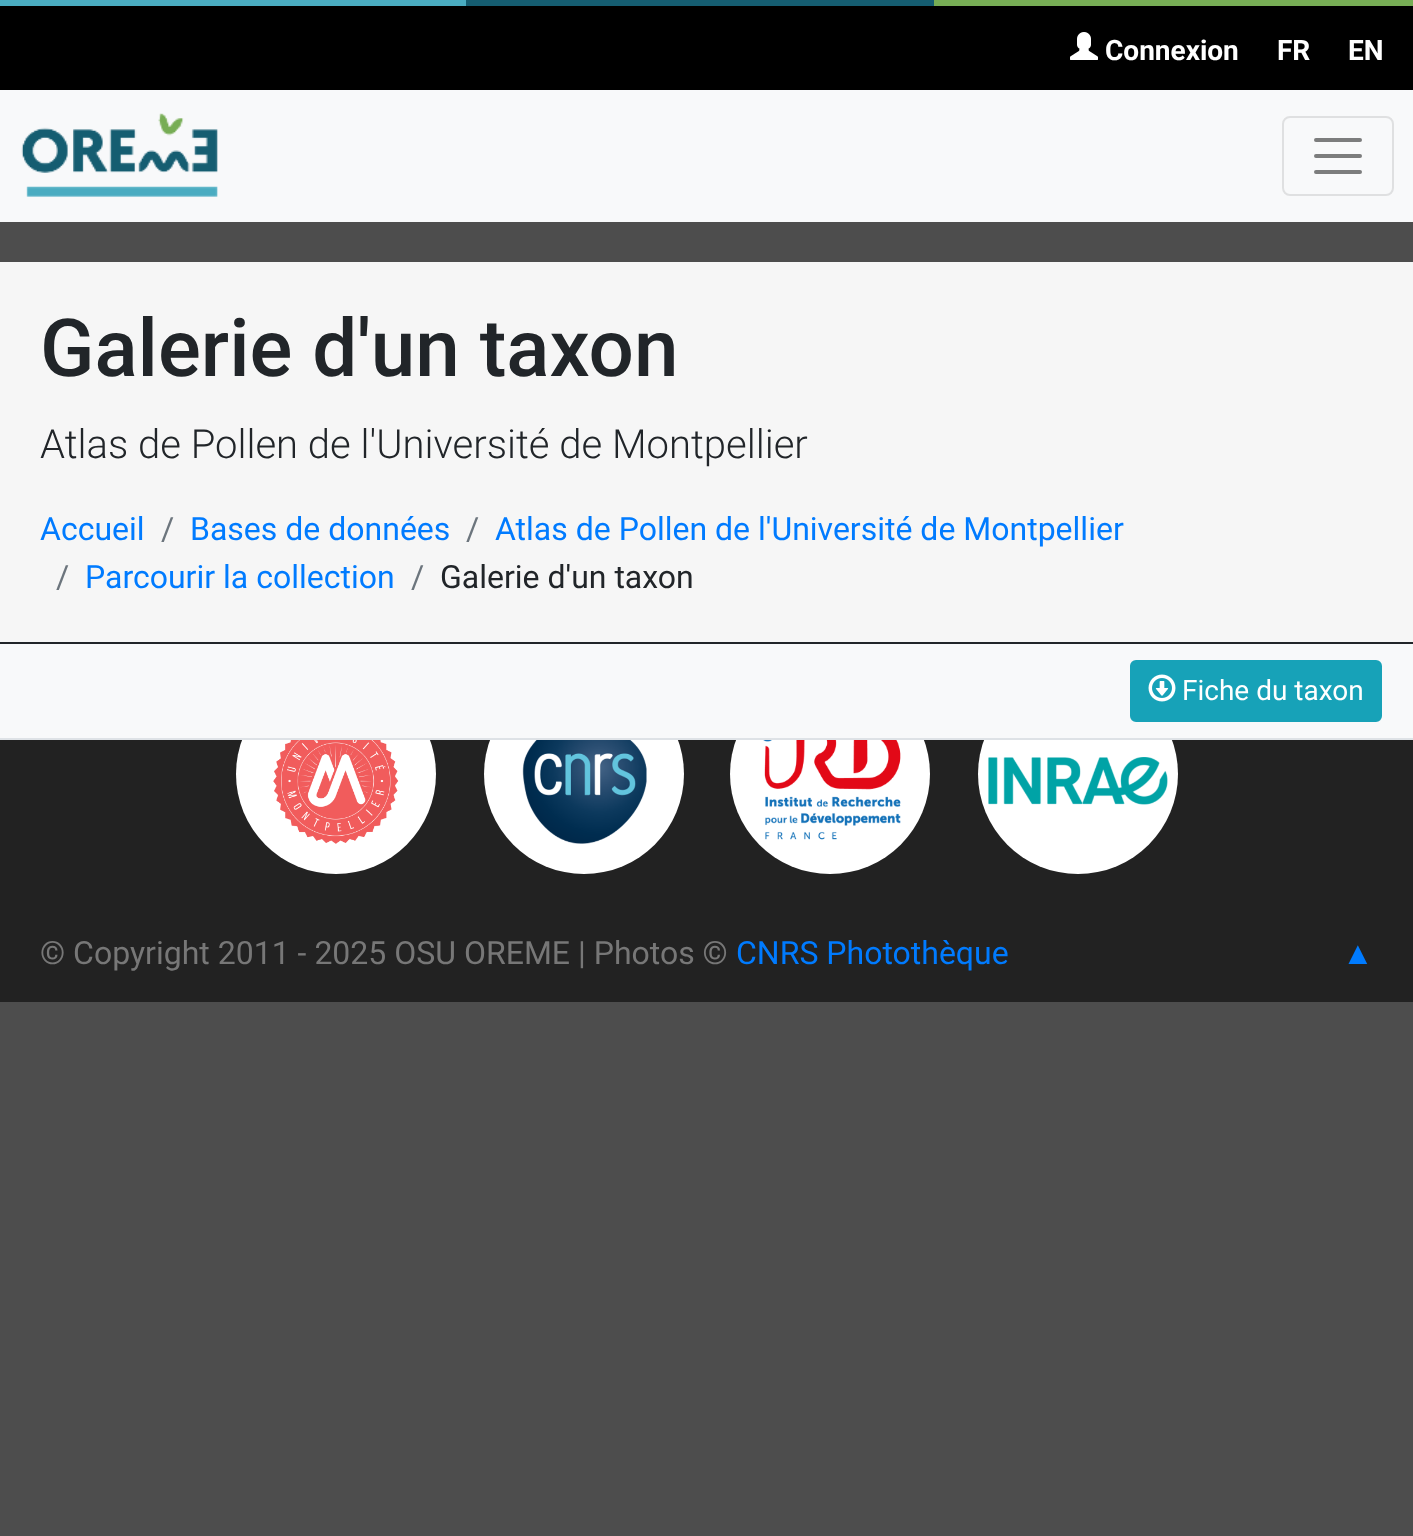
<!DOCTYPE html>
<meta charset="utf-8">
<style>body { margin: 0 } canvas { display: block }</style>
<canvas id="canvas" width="1413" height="1536"></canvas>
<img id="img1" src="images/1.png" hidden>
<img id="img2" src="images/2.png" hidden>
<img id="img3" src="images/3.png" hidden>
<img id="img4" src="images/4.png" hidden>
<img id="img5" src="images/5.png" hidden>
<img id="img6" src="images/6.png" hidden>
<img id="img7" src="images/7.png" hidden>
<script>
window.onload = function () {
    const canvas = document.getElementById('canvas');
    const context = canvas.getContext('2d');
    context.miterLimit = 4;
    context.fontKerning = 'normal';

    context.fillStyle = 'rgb(77, 77, 77)';
    context.fillRect(0, 0, 1413, 1536);
    context.fillStyle = 'rgb(0, 0, 0)';
    context.fillRect(0, 6, 1413, 84);
    context.fillStyle = 'rgb(74, 172, 193)';
    context.fillRect(0, 0, 466, 6);
    context.fillStyle = 'rgb(21, 93, 113)';
    context.fillRect(466, 0, 468, 6);
    context.fillStyle = 'rgb(119, 173, 85)';
    context.fillRect(934, 0, 479, 6);
    context.drawImage(document.getElementById('img1'), 1070, 32, 28, 28);
    context.fillStyle = 'rgb(248, 249, 250)';
    context.fillRect(0, 90, 1413, 132);
    context.drawImage(document.getElementById('img2'), 21, 113, 197, 84);
    context.beginPath();
    context.roundRect(1283, 117, 110, 78, 7);
    context.strokeStyle = 'rgb(223, 224, 225)';
    context.lineWidth = 2;
    context.stroke();
    context.beginPath();
    context.moveTo(1316, 140);
    context.lineTo(1360, 140);
    context.moveTo(1316, 156);
    context.lineTo(1360, 156);
    context.moveTo(1316, 172);
    context.lineTo(1360, 172);
    context.strokeStyle = 'rgb(124, 125, 125)';
    context.lineWidth = 4;
    context.lineCap = 'round';
    context.stroke();
    context.fillStyle = 'rgb(246, 246, 246)';
    context.fillRect(0, 262, 1413, 380);
    context.fillStyle = 'rgb(33, 37, 41)';
    context.fillRect(0, 642, 1413, 2);
    context.fillStyle = 'rgb(34, 34, 34)';
    context.fillRect(0, 740, 1413, 262);
    context.fillStyle = 'rgb(255, 255, 255)';
    context.beginPath();
    context.arc(336, 774, 100, 0, 2 * Math.PI);
    context.fill();
    context.drawImage(document.getElementById('img3'), 273, 740, 126, 104);
    context.beginPath();
    context.arc(584, 774, 100, 0, 2 * Math.PI);
    context.fill();
    context.drawImage(document.getElementById('img4'), 522, 740, 125, 104);
    context.beginPath();
    context.arc(830, 774, 100, 0, 2 * Math.PI);
    context.fill();
    context.drawImage(document.getElementById('img5'), 763, 740, 138, 100);
    context.beginPath();
    context.arc(1078, 774, 100, 0, 2 * Math.PI);
    context.fill();
    context.drawImage(document.getElementById('img6'), 988, 757, 180, 48);
    context.fillStyle = 'rgb(248, 249, 250)';
    context.fillRect(0, 644, 1413, 94);
    context.fillStyle = 'rgb(222, 226, 230)';
    context.fillRect(0, 738, 1413, 2);
    context.fillStyle = 'rgb(23, 162, 184)';
    context.beginPath();
    context.roundRect(1131, 661, 250, 60, 5);
    context.fill();
    context.strokeStyle = 'rgb(23, 162, 184)';
    context.lineWidth = 2;
    context.stroke();
    context.drawImage(document.getElementById('img7'), 1148, 674, 28, 28);
    context.font = 'bold 28px Roboto';
    context.fillStyle = 'rgb(255, 255, 255)';
    context.fillText('Connexion', 1105, 60);
    context.fillText('FR', 1277, 60);
    context.fillText('EN', 1348, 60);
    context.font = '500 80px Roboto';
    context.fillStyle = 'rgb(33, 37, 41)';
    context.fillText('Galerie d\'un taxon', 40, 376);
    context.font = '300 40px Roboto';
    context.fillText('Atlas de Pollen de l\'Université de Montpellier', 40, 458);
    context.font = '32px Roboto';
    context.fillStyle = 'rgb(0, 123, 255)';
    context.fillText('Accueil', 40, 540);
    context.fillStyle = 'rgb(108, 117, 125)';
    context.fillText('/', 161, 540);
    context.fillStyle = 'rgb(0, 123, 255)';
    context.fillText('Bases de données', 190, 540);
    context.fillStyle = 'rgb(108, 117, 125)';
    context.fillText('/', 466, 540);
    context.fillStyle = 'rgb(0, 123, 255)';
    context.fillText('Atlas de Pollen de l\'Université de Montpellier', 495, 540);
    context.fillStyle = 'rgb(108, 117, 125)';
    context.fillText('/', 56, 588);
    context.fillStyle = 'rgb(0, 123, 255)';
    context.fillText('Parcourir la collection', 85, 588);
    context.fillStyle = 'rgb(108, 117, 125)';
    context.fillText('/', 411, 588);
    context.fillStyle = 'rgb(33, 37, 41)';
    context.fillText('Galerie d\'un taxon', 440, 588);
    context.font = '28px Roboto';
    context.fillStyle = 'rgb(255, 255, 255)';
    context.fillText('Fiche du taxon', 1182, 700);
    context.font = '32px Roboto';
    context.fillStyle = 'rgb(119, 119, 119)';
    context.fillText('© Copyright 2011 - 2025 OSU OREME | Photos ©', 40, 964);
    context.fillStyle = 'rgb(0, 123, 255)';
    context.fillText('CNRS Photothèque', 736, 964);
    context.font = '32px Liberation Sans';
    context.fillText('▲', 1342, 964);
};
</script>
